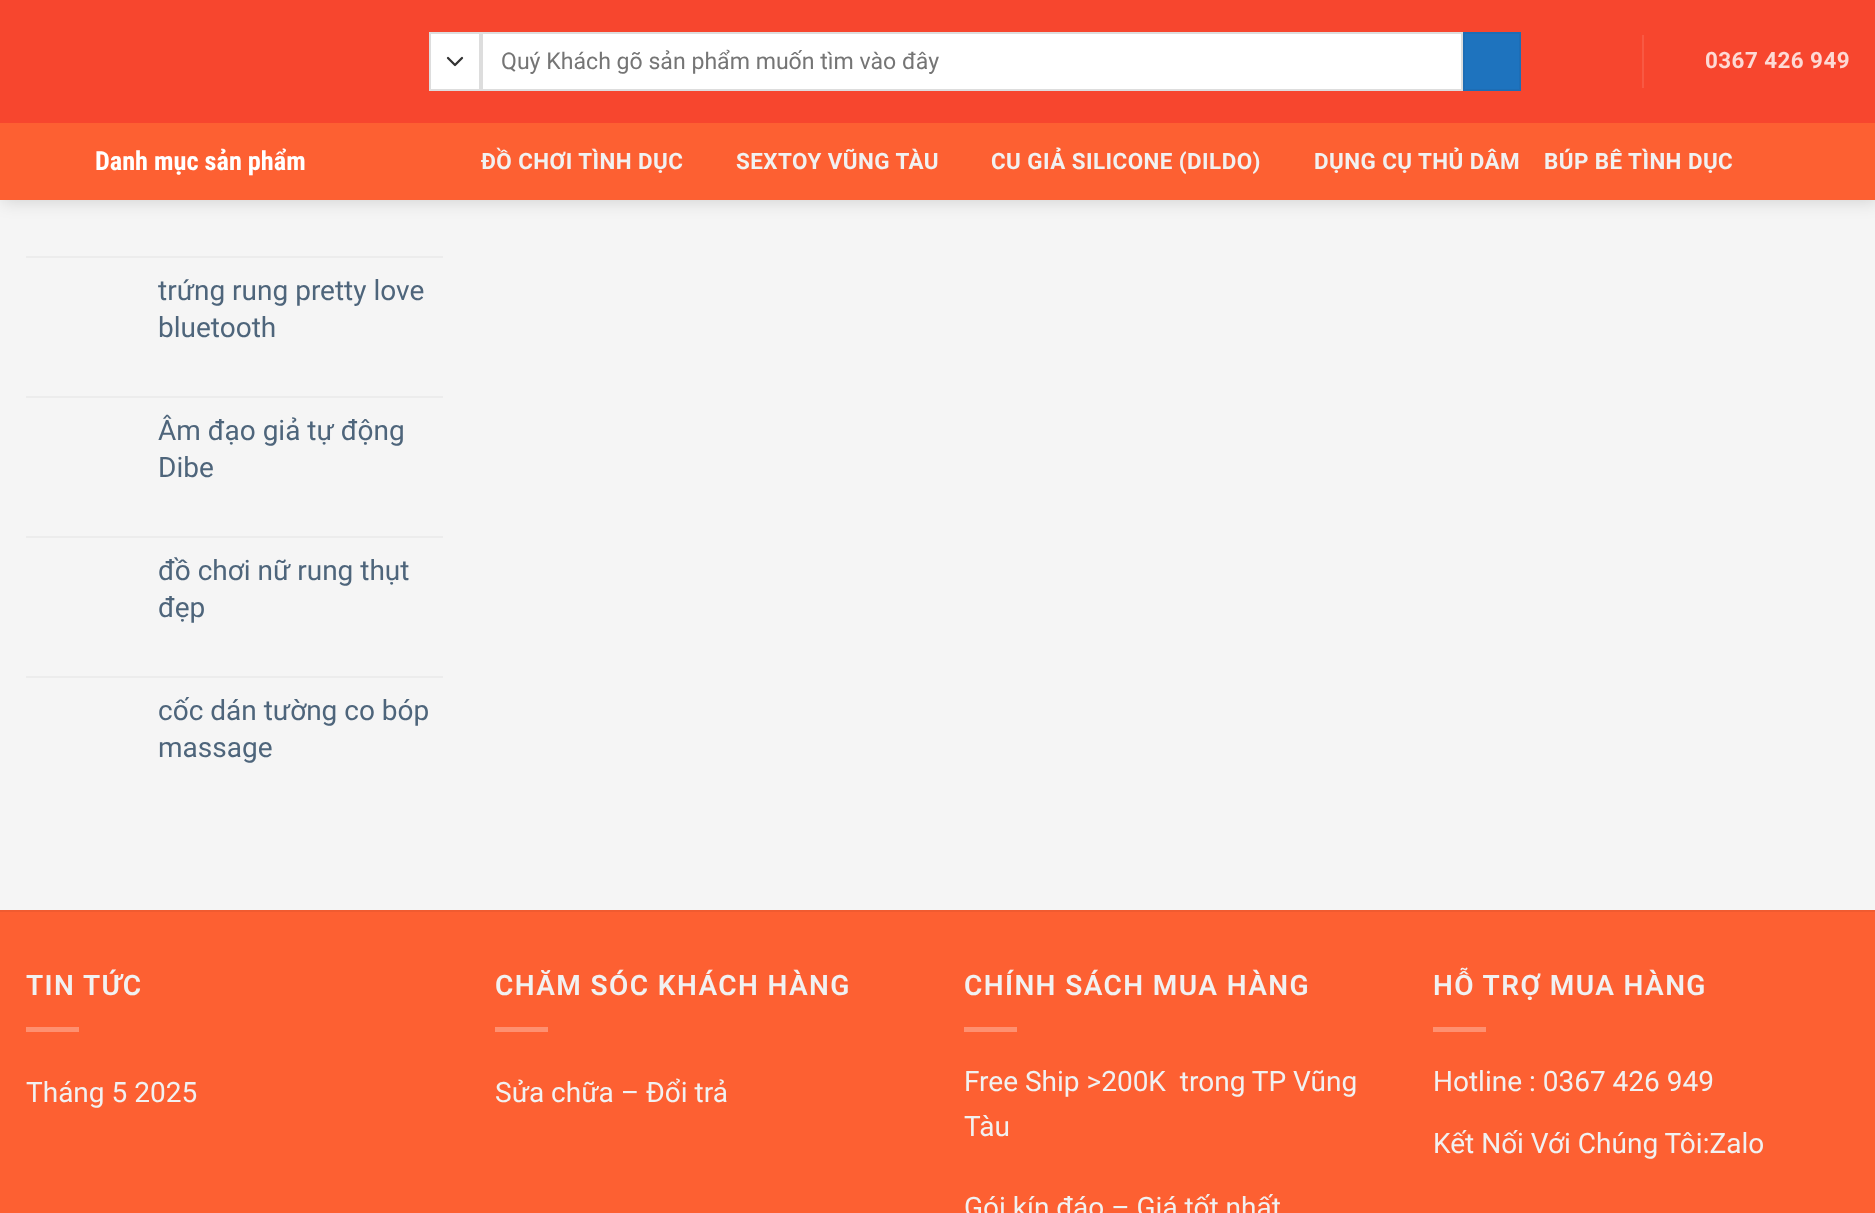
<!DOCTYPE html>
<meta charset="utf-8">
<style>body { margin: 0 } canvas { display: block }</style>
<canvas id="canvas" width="1875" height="1213"></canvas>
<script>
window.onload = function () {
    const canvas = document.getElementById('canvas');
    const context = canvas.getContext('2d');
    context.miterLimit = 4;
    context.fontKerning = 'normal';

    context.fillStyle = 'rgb(245, 245, 245)';
    context.fillRect(0, 0, 1875, 1213);
    context.fillStyle = 'rgba(0, 0, 0, 0.15)';
    context.filter = 'blur(9px)';
    context.beginPath();
    context.rect(2, 2, 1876, 199);
    context.fill();
    context.filter = 'none';
    context.fillStyle = 'rgb(247, 70, 46)';
    context.fillRect(0, 0, 1875, 123);
    context.fillStyle = 'rgb(255, 255, 255)';
    context.fillRect(431, 34, 48, 55);
    context.beginPath();
    context.moveTo(448, 58);
    context.lineTo(455, 65);
    context.lineTo(462, 58);
    context.strokeStyle = 'rgb(51, 51, 51)';
    context.lineWidth = 2.3;
    context.lineCap = 'round';
    context.lineJoin = 'round';
    context.stroke();
    context.strokeStyle = 'rgb(221, 221, 221)';
    context.lineWidth = 2;
    context.lineJoin = 'miter';
    context.strokeRect(430, 33, 50, 57);
    context.beginPath();
    context.rect(482, 33, 980, 57);
    context.fill();
    context.stroke();
    context.fillStyle = 'rgb(30, 115, 190)';
    context.beginPath();
    context.rect(1464, 33, 56, 57);
    context.fill();
    context.strokeStyle = 'rgb(29, 109, 181)';
    context.stroke();
    context.fillStyle = 'rgb(248, 89, 67)';
    context.fillRect(1642, 35, 2, 53);
    context.fillStyle = 'rgb(253, 96, 50)';
    context.fillRect(0, 123, 1875, 77);
    context.fillStyle = 'rgb(236, 236, 236)';
    context.fillRect(26, 256, 417, 2);
    context.fillRect(26, 396, 417, 2);
    context.fillRect(26, 536, 417, 2);
    context.fillRect(26, 676, 417, 2);
    context.fillStyle = 'rgb(253, 96, 50)';
    context.fillRect(0, 912, 1875, 301);
    context.fillStyle = 'rgb(240, 91, 48)';
    context.fillRect(0, 910, 1875, 2);
    context.fillStyle = 'rgb(254, 144, 112)';
    context.fillRect(26, 1027, 53, 5);
    context.fillRect(495, 1027, 53, 5);
    context.fillRect(964, 1027, 53, 5);
    context.fillRect(1433, 1027, 53, 5);
    context.font = '23.1px Roboto';
    context.fillStyle = 'rgb(117, 117, 117)';
    context.fillText('Quý Khách gõ sản phẩm muốn tìm vào đây', 501, 69);
    context.letterSpacing = '0.45px';
    context.font = 'bold 22.4px Roboto';
    context.fillStyle = 'rgb(253, 218, 213)';
    context.fillText('0367 426 949', 1705, 68);
    context.letterSpacing = '0px';
    context.font = 'bold 26.25px Roboto Condensed';
    context.fillStyle = 'rgb(255, 255, 255)';
    context.fillText('Danh mục sản phẩm', 95, 170);
    context.letterSpacing = '0.45px';
    context.font = 'bold 22.4px Roboto';
    context.fillStyle = 'rgb(241, 241, 241)';
    context.fillText('ĐỒ CHƠI TÌNH DỤC', 481, 169);
    context.fillText('SEXTOY VŨNG TÀU', 736, 169);
    context.fillText('CU GIẢ SILICONE (DILDO)', 991, 169);
    context.fillText('DỤNG CỤ THỦ DÂM', 1314, 169);
    context.fillText('BÚP BÊ TÌNH DỤC', 1544, 169);
    context.letterSpacing = '0px';
    context.font = '28px Roboto';
    context.fillStyle = 'rgb(78, 101, 123)';
    context.fillText('trứng rung pretty love', 158, 300);
    context.fillText('bluetooth', 158, 337);
    context.fillText('Âm đạo giả tự động', 158, 440);
    context.fillText('Dibe', 158, 477);
    context.fillText('đồ chơi nữ rung thụt', 158, 580);
    context.fillText('đẹp', 158, 617);
    context.fillText('cốc dán tường co bóp', 158, 720);
    context.fillText('massage', 158, 757);
    context.letterSpacing = '1.4px';
    context.font = '600 28px Roboto';
    context.fillStyle = 'rgb(241, 241, 241)';
    context.fillText('TIN TỨC', 26, 995);
    context.letterSpacing = '0px';
    context.font = '28px Roboto';
    context.fillText('Tháng 5 2025', 26, 1102);
    context.letterSpacing = '1.4px';
    context.font = '600 28px Roboto';
    context.fillText('CHĂM SÓC KHÁCH HÀNG', 495, 995);
    context.letterSpacing = '0px';
    context.font = '28px Roboto';
    context.fillText('Sửa chữa – Đổi trả', 495, 1102);
    context.letterSpacing = '1.4px';
    context.font = '600 28px Roboto';
    context.fillText('CHÍNH SÁCH MUA HÀNG', 964, 995);
    context.letterSpacing = '0px';
    context.font = '28px Roboto';
    context.fillText('Free Ship >200K  trong TP Vũng', 964, 1091);
    context.fillText('Tàu', 964, 1136);
    context.fillText('Gói kín đáo – Giá tốt nhất', 964, 1217);
    context.letterSpacing = '1.4px';
    context.font = '600 28px Roboto';
    context.fillText('HỖ TRỢ MUA HÀNG', 1433, 995);
    context.letterSpacing = '0px';
    context.font = '28px Roboto';
    context.fillText('Hotline : 0367 426 949', 1433, 1091);
    context.fillText('Kết Nối Với Chúng Tôi:Zalo', 1433, 1153);
};
</script>
